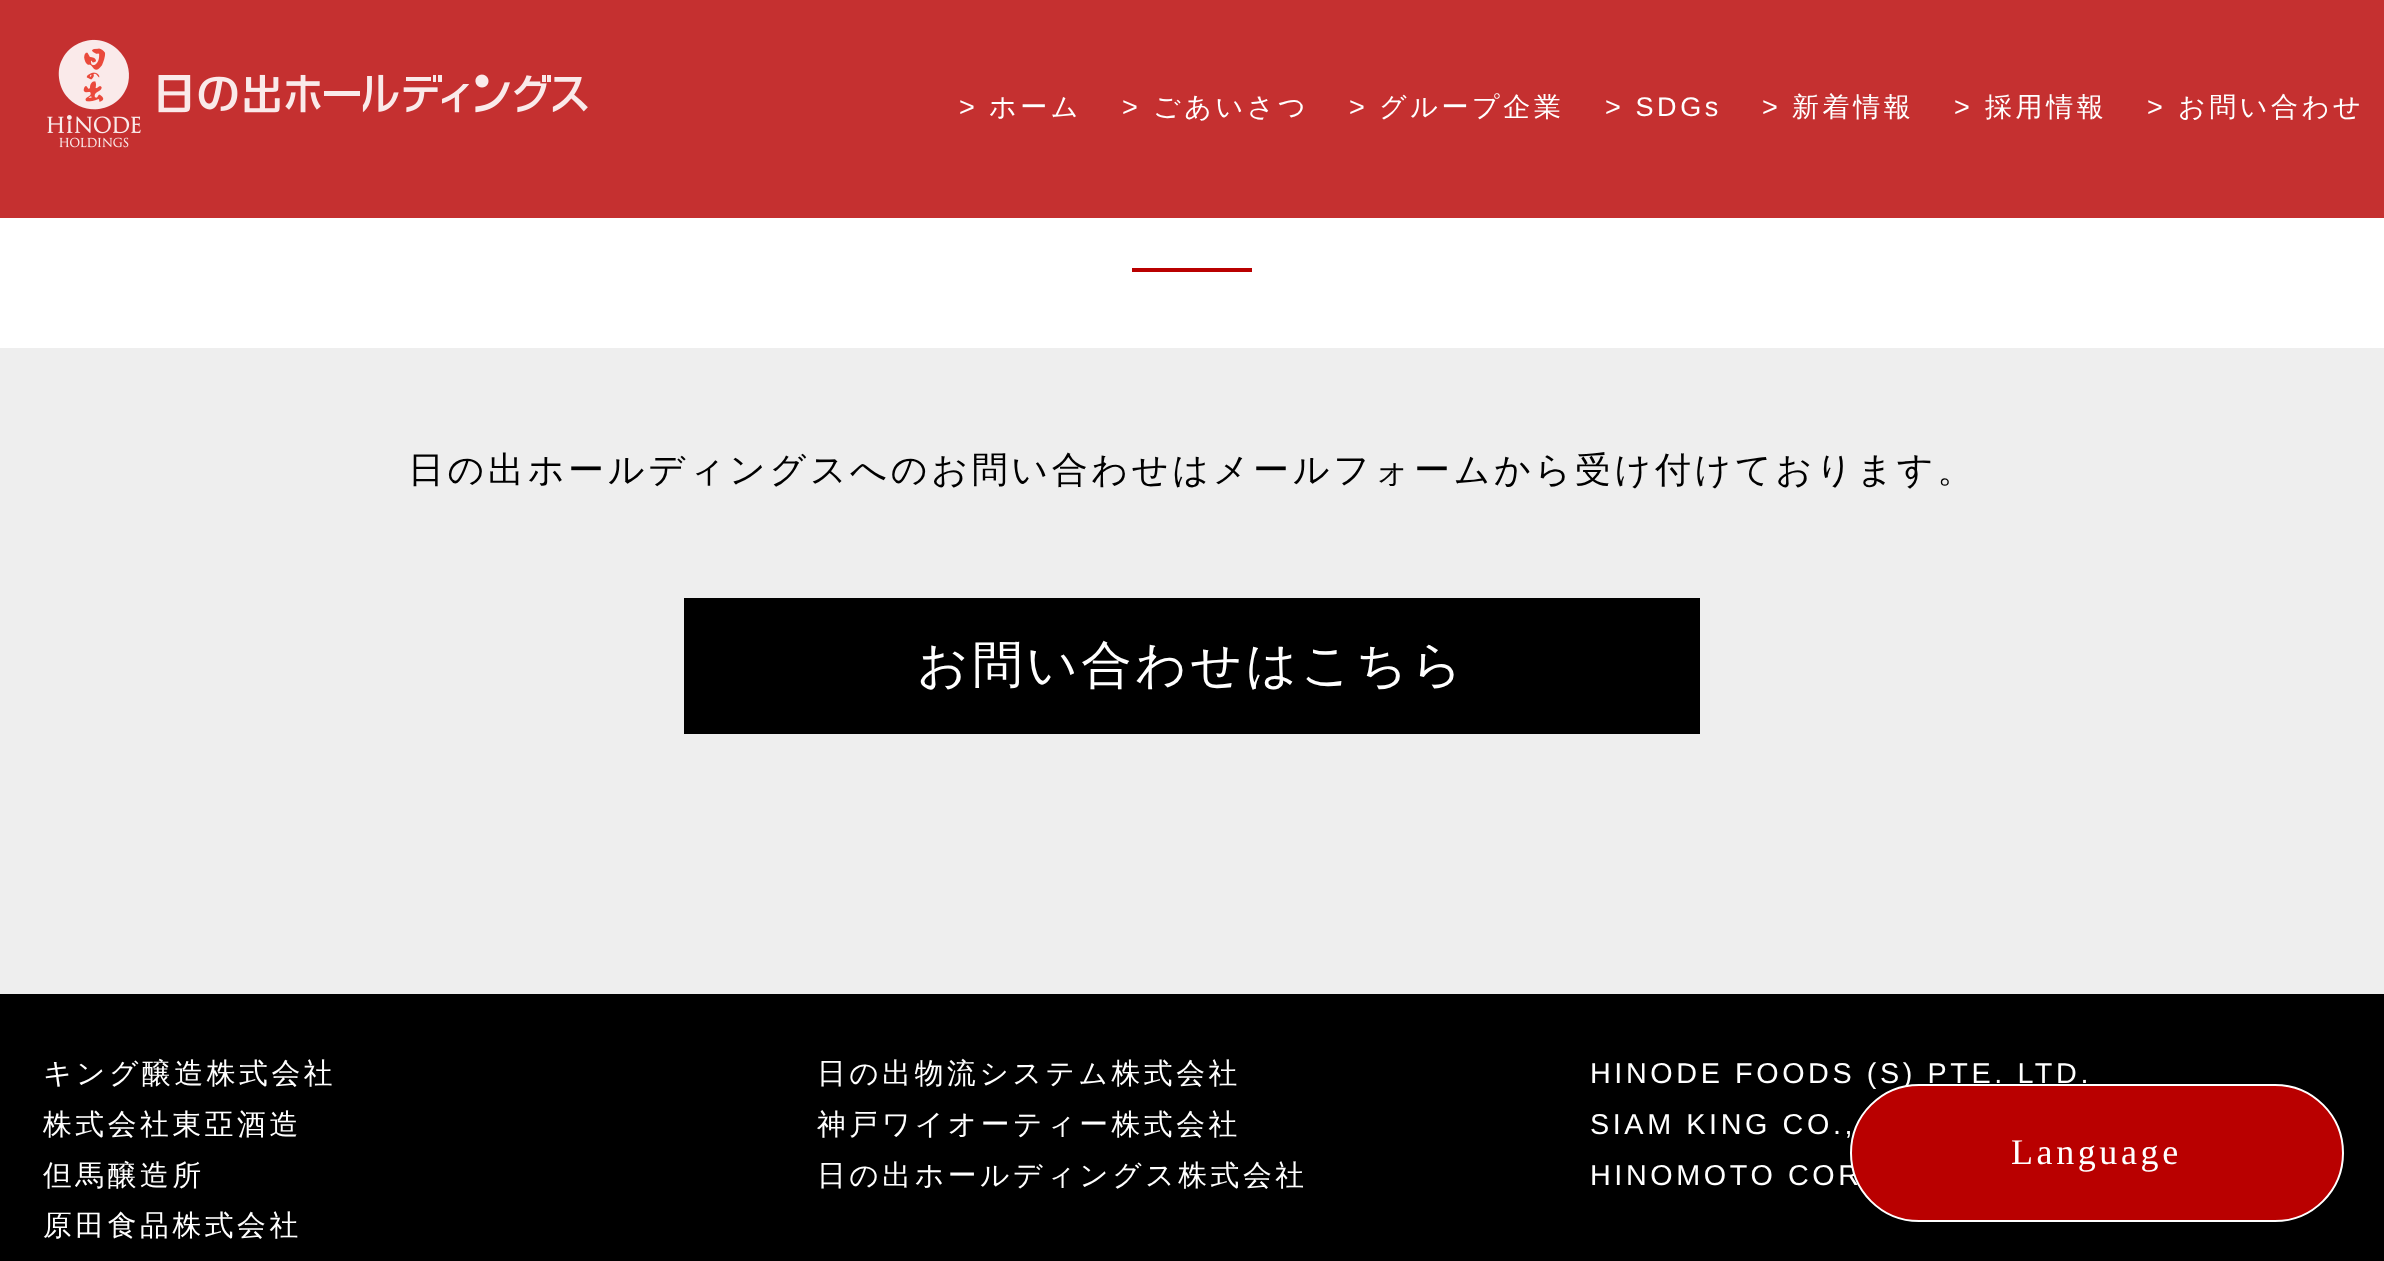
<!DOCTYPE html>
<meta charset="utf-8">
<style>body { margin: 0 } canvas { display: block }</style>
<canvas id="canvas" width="2384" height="1261"></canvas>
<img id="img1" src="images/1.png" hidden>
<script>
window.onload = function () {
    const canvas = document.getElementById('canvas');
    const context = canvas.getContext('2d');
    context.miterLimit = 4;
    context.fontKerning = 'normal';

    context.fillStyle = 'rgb(255, 255, 255)';
    context.fillRect(0, 0, 2384, 1261);
    context.fillStyle = 'rgba(184, 0, 0, 0.81)';
    context.fillRect(0, 0, 2384, 218);
    context.drawImage(document.getElementById('img1'), 47, 39, 541, 109);
    context.fillStyle = 'rgb(185, 0, 0)';
    context.fillRect(1132, 268, 120, 4);
    context.fillStyle = 'rgb(238, 238, 238)';
    context.fillRect(0, 348, 2384, 646);
    context.fillStyle = 'rgb(0, 0, 0)';
    context.fillRect(684, 598, 1016, 136);
    context.fillRect(0, 994, 2384, 267);
    context.letterSpacing = '3.6px';
    context.font = '27px Liberation Sans';
    context.fillStyle = 'rgb(255, 255, 255)';
    context.fillText('>', 959, 116);
    context.font = '500 27px WenQuanYi Zen Hei';
    context.fillText('ホーム', 989, 116);
    context.font = '27px Liberation Sans';
    context.fillText('>', 1122, 116);
    context.font = '500 27px WenQuanYi Zen Hei';
    context.fillText('ごあいさつ', 1153, 116);
    context.font = '27px Liberation Sans';
    context.fillText('>', 1349, 116);
    context.font = '500 27px WenQuanYi Zen Hei';
    context.fillText('グループ企業', 1379, 116);
    context.font = '27px Liberation Sans';
    context.fillText('> SDGs', 1605, 116);
    context.fillText('>', 1762, 116);
    context.font = '500 27px WenQuanYi Zen Hei';
    context.fillText('新着情報', 1792, 116);
    context.font = '27px Liberation Sans';
    context.fillText('>', 1954, 116);
    context.font = '500 27px WenQuanYi Zen Hei';
    context.fillText('採用情報', 1985, 116);
    context.font = '27px Liberation Sans';
    context.fillText('>', 2147, 116);
    context.font = '500 27px WenQuanYi Zen Hei';
    context.fillText('お問い合わせ', 2178, 116);
    context.font = '500 36px WenQuanYi Zen Hei';
    context.fillStyle = 'rgb(0, 0, 0)';
    context.fillText('日の出ホールディングスへのお問い合わせはメールフォームから受け付けております。', 408, 482);
    context.font = '500 50.4px WenQuanYi Zen Hei';
    context.fillStyle = 'rgb(255, 255, 255)';
    context.fillText('お問い合わせはこちら', 917, 682);
    context.font = '500 28.75px WenQuanYi Zen Hei';
    context.fillText('キング醸造株式会社', 43, 1083);
    context.fillText('株式会社東亞酒造', 43, 1134);
    context.fillText('但馬醸造所', 43, 1185);
    context.fillText('原田食品株式会社', 43, 1235);
    context.fillText('日の出物流システム株式会社', 817, 1083);
    context.fillText('神戸ワイオーティー株式会社', 817, 1134);
    context.fillText('日の出ホールディングス株式会社', 817, 1185);
    context.font = '28.75px Liberation Sans';
    context.fillText('HINODE FOODS (S) PTE. LTD.', 1590, 1083);
    context.fillText('SIAM KING CO.,', 1590, 1134);
    context.fillText('HINOMOTO COR', 1590, 1185);
    context.fillStyle = 'rgb(185, 0, 0)';
    context.beginPath();
    context.roundRect(1851, 1085, 492, 136, 68);
    context.fill();
    context.strokeStyle = 'rgb(255, 255, 255)';
    context.lineWidth = 2;
    context.stroke();
    context.font = '36px Liberation Serif';
    context.fillStyle = 'rgb(255, 255, 255)';
    context.fillText('Language', 2011, 1164);
};
</script>
